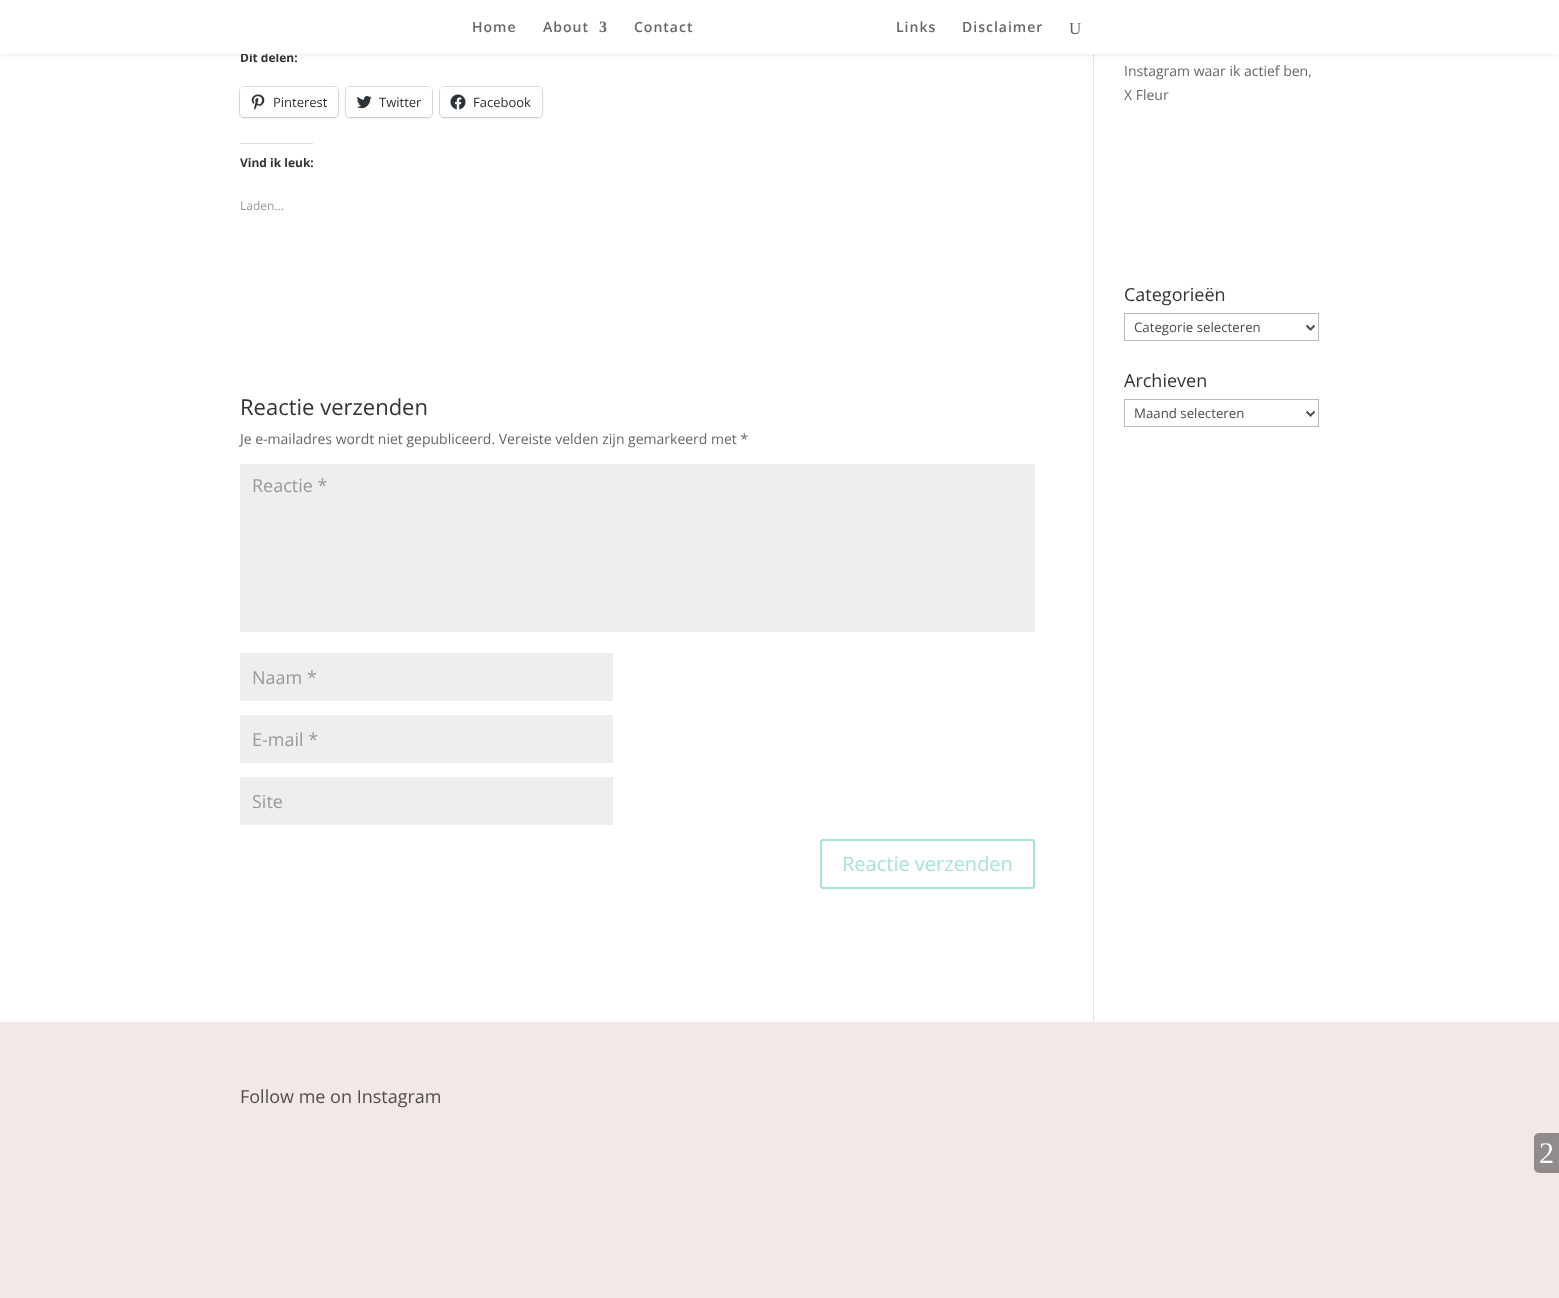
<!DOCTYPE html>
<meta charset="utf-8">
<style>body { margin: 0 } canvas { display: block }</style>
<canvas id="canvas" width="1559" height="1298"></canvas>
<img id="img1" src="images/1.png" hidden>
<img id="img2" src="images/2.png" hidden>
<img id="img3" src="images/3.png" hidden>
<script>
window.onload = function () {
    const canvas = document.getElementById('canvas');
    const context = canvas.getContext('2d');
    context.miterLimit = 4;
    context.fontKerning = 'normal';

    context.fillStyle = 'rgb(255, 255, 255)';
    context.fillRect(0, 0, 1559, 1298);
    context.fillStyle = 'rgb(226, 226, 226)';
    context.fillRect(1093, 54, 1, 968);
    context.fillStyle = 'rgba(0, 0, 0, 0.1)';
    context.filter = 'blur(3.5px)';
    context.beginPath();
    context.rect(0, 0, 1559, 54);
    context.fill();
    context.filter = 'none';
    context.beginPath();
    context.roundRect(239.5, 86.5, 99, 31, 4.5);
    context.strokeStyle = 'rgb(224, 224, 224)';
    context.stroke();
    context.fillStyle = 'rgba(0, 0, 0, 0.12)';
    context.filter = 'blur(1px)';
    context.beginPath();
    context.roundRect(240, 88, 98, 30, 4);
    context.fill();
    context.filter = 'none';
    context.fillStyle = 'rgb(255, 255, 255)';
    context.beginPath();
    context.roundRect(240, 87, 98, 30, 4);
    context.fill();
    context.drawImage(document.getElementById('img1'), 251, 94, 14, 16);
    context.beginPath();
    context.roundRect(345.5, 86.5, 87, 31, 4.5);
    context.stroke();
    context.fillStyle = 'rgba(0, 0, 0, 0.12)';
    context.filter = 'blur(1px)';
    context.beginPath();
    context.roundRect(346, 88, 86, 30, 4);
    context.fill();
    context.filter = 'none';
    context.fillStyle = 'rgb(255, 255, 255)';
    context.beginPath();
    context.roundRect(346, 87, 86, 30, 4);
    context.fill();
    context.drawImage(document.getElementById('img2'), 356, 96, 16, 13);
    context.beginPath();
    context.roundRect(439.5, 86.5, 103, 31, 4.5);
    context.stroke();
    context.fillStyle = 'rgba(0, 0, 0, 0.12)';
    context.filter = 'blur(1px)';
    context.beginPath();
    context.roundRect(440, 88, 102, 30, 4);
    context.fill();
    context.filter = 'none';
    context.fillStyle = 'rgb(255, 255, 255)';
    context.beginPath();
    context.roundRect(440, 87, 102, 30, 4);
    context.fill();
    context.drawImage(document.getElementById('img3'), 450, 94, 16, 16);
    context.fillStyle = 'rgb(220, 220, 222)';
    context.fillRect(240, 143, 73, 1);
    context.fillStyle = 'rgb(238, 238, 238)';
    context.fillRect(240, 464, 795, 168);
    context.fillRect(240, 653, 373, 48);
    context.fillRect(240, 715, 373, 48);
    context.fillRect(240, 777, 373, 48);
    context.beginPath();
    context.roundRect(821, 840, 213, 48, 2);
    context.strokeStyle = 'rgb(166, 227, 211)';
    context.lineWidth = 2;
    context.stroke();
    context.strokeStyle = 'rgb(187, 187, 187)';
    context.lineWidth = 1;
    context.strokeRect(1124.5, 313.5, 194, 27);
    context.beginPath();
    context.moveTo(1306.5, 325.5);
    context.lineTo(1310.5, 329.5);
    context.lineTo(1314.5, 325.5);
    context.strokeStyle = 'rgb(78, 78, 78)';
    context.lineWidth = 2;
    context.stroke();
    context.strokeStyle = 'rgb(187, 187, 187)';
    context.lineWidth = 1;
    context.strokeRect(1124.5, 399.5, 194, 27);
    context.beginPath();
    context.moveTo(1306.5, 411.5);
    context.lineTo(1310.5, 415.5);
    context.lineTo(1314.5, 411.5);
    context.strokeStyle = 'rgb(78, 78, 78)';
    context.lineWidth = 2;
    context.stroke();
    context.fillStyle = 'rgb(242, 232, 231)';
    context.fillRect(0, 1022, 1559, 276);
    context.fillStyle = 'rgb(145, 139, 139)';
    context.beginPath();
    context.roundRect(1534, 1133, 25, 40, [5, 0, 0, 5]);
    context.fill();
    context.font = 'bold 12px Open Sans';
    context.fillStyle = 'rgb(51, 51, 51)';
    context.fillText('Dit delen:', 240, 62);
    context.fillStyle = 'rgb(255, 255, 255)';
    context.fillRect(0, 0, 1559, 54);
    context.letterSpacing = '1px';
    context.font = '600 14px Open Sans';
    context.fillStyle = 'rgb(102, 102, 102)';
    context.fillText('Disclaimer', 962, 32);
    context.fillText('Links', 896, 32);
    context.fillText('Contact', 634, 32);
    context.font = 'bold 16px Liberation Serif';
    context.fillText('3', 599, 32);
    context.font = '600 14px Open Sans';
    context.fillText('About', 543, 32);
    context.fillText('Home', 472, 32);
    context.letterSpacing = '0px';
    context.font = '17px Liberation Serif';
    context.fillText('U', 1069, 34);
    context.font = '13px Open Sans';
    context.fillStyle = 'rgb(44, 51, 56)';
    context.fillText('Pinterest', 273, 107);
    context.fillText('Twitter', 379, 107);
    context.fillText('Facebook', 473, 107);
    context.font = 'bold 12px Open Sans';
    context.fillStyle = 'rgb(51, 51, 51)';
    context.fillText('Vind ik leuk:', 240, 167);
    context.font = '12px Open Sans';
    context.fillStyle = 'rgb(153, 153, 153)';
    context.fillText('Laden...', 240, 210);
    context.font = '22px Open Sans';
    context.fillStyle = 'rgb(51, 51, 51)';
    context.fillText('Reactie verzenden', 240, 415);
    context.font = '14px Open Sans';
    context.fillStyle = 'rgb(102, 102, 102)';
    context.fillText('Je e-mailadres wordt niet gepubliceerd. Vereiste velden zijn gemarkeerd met *', 240, 444);
    context.font = '18px Open Sans';
    context.fillStyle = 'rgb(153, 153, 153)';
    context.fillText('Reactie *', 252, 492);
    context.fillText('Naam *', 252, 684);
    context.fillText('E-mail *', 252, 746);
    context.fillText('Site', 252, 808);
    context.font = '20px Open Sans';
    context.fillStyle = 'rgb(166, 227, 211)';
    context.fillText('Reactie verzenden', 842, 871);
    context.font = '14px Open Sans';
    context.fillStyle = 'rgb(102, 102, 102)';
    context.fillText('Instagram waar ik actief ben,', 1124, 76);
    context.fillText('X Fleur', 1124, 100);
    context.font = '18px Open Sans';
    context.fillStyle = 'rgb(51, 51, 51)';
    context.fillText('Categorieën', 1124, 301);
    context.font = '13.25px Open Sans';
    context.fillStyle = 'rgb(78, 78, 78)';
    context.fillText('Categorie selecteren', 1134, 332);
    context.font = '18px Open Sans';
    context.fillStyle = 'rgb(51, 51, 51)';
    context.fillText('Archieven', 1124, 387);
    context.font = '13.25px Open Sans';
    context.fillStyle = 'rgb(78, 78, 78)';
    context.fillText('Maand selecteren', 1134, 418);
    context.font = '18px Open Sans';
    context.fillText('Follow me on Instagram', 240, 1103);
    context.font = '30px Liberation Serif';
    context.fillStyle = 'rgb(255, 255, 255)';
    context.fillText('2', 1539, 1163);
};
</script>
